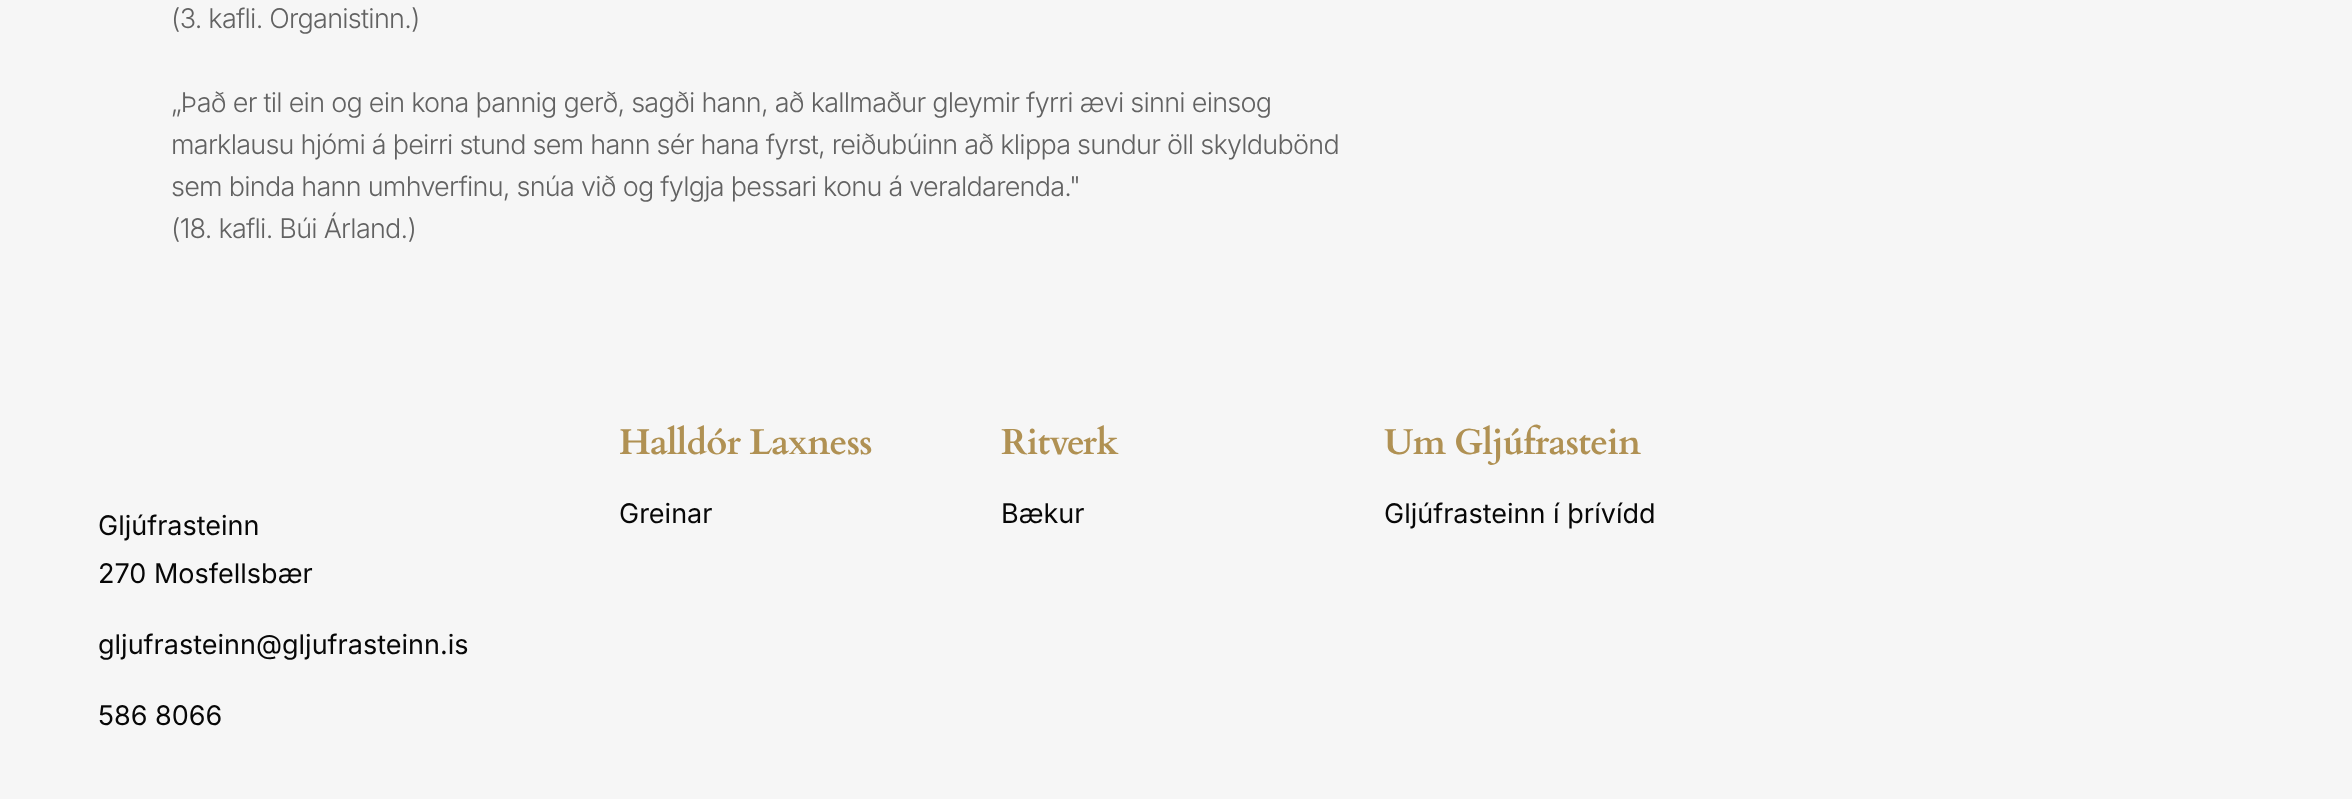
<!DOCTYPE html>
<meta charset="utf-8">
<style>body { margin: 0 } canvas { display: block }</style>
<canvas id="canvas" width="2352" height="799"></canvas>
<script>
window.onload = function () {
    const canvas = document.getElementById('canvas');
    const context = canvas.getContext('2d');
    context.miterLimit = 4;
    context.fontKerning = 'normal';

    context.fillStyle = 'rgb(246, 246, 246)';
    context.fillRect(0, 0, 2352, 799);
    context.letterSpacing = '-0.75px';
    context.font = '300 27px Inter';
    context.fillStyle = 'rgb(98, 98, 98)';
    context.fillText('(3. kafli. Organistinn.)', 171, 28);
    context.fillText('„Það er til ein og ein kona þannig gerð, sagði hann, að kallmaður gleymir fyrri ævi sinni einsog', 171, 112);
    context.fillText('marklausu hjómi á þeirri stund sem hann sér hana fyrst, reiðubúinn að klippa sundur öll skyldubönd', 171, 154);
    context.fillText('sem binda hann umhverfinu, snúa við og fylgja þessari konu á veraldarenda."', 171, 196);
    context.fillText('(18. kafli. Búi Árland.)', 171, 238);
    context.font = 'bold 36px Cardo';
    context.fillStyle = 'rgb(176, 145, 83)';
    context.fillText('Halldór Laxness', 619, 454);
    context.letterSpacing = '0px';
    context.font = '27px Inter';
    context.fillStyle = 'rgb(7, 7, 7)';
    context.fillText('Greinar', 619, 523);
    context.letterSpacing = '-0.75px';
    context.font = 'bold 36px Cardo';
    context.fillStyle = 'rgb(176, 145, 83)';
    context.fillText('Ritverk', 1001, 454);
    context.letterSpacing = '0px';
    context.font = '27px Inter';
    context.fillStyle = 'rgb(7, 7, 7)';
    context.fillText('Bækur', 1001, 523);
    context.letterSpacing = '-0.75px';
    context.font = 'bold 36px Cardo';
    context.fillStyle = 'rgb(176, 145, 83)';
    context.fillText('Um Gljúfrastein', 1384, 454);
    context.letterSpacing = '0px';
    context.font = '27px Inter';
    context.fillStyle = 'rgb(7, 7, 7)';
    context.fillText('Gljúfrasteinn í þrívídd', 1384, 523);
    context.fillText('Gljúfrasteinn', 98, 535);
    context.fillText('270 Mosfellsbær', 98, 583);
    context.fillText('gljufrasteinn@gljufrasteinn.is', 98, 654);
    context.fillText('586 8066', 98, 725);
};
</script>
